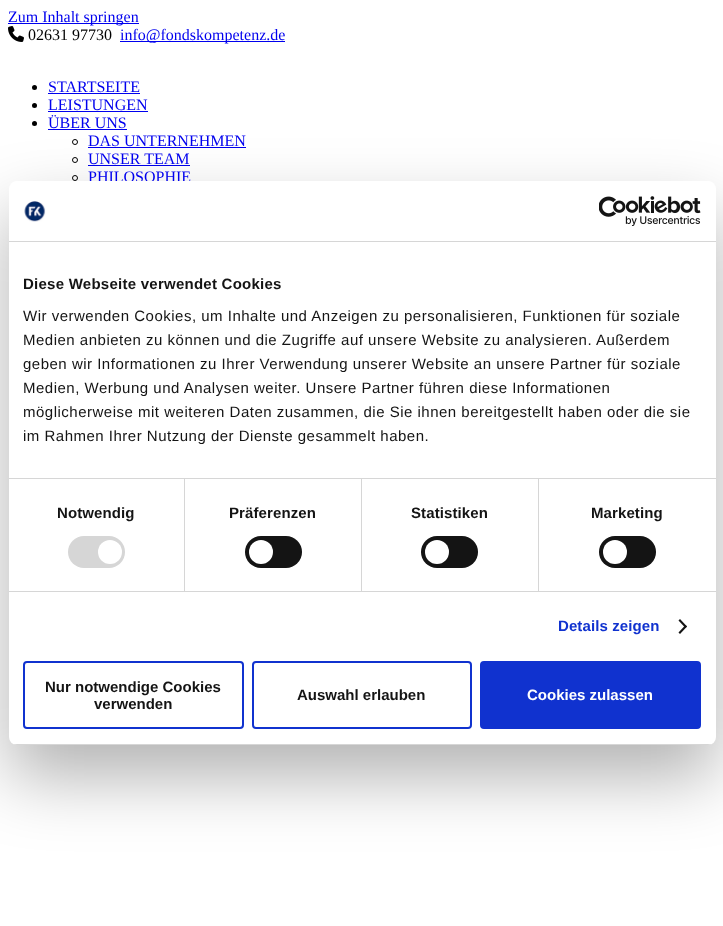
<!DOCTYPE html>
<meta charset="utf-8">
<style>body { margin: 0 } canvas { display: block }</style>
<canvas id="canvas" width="723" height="926"></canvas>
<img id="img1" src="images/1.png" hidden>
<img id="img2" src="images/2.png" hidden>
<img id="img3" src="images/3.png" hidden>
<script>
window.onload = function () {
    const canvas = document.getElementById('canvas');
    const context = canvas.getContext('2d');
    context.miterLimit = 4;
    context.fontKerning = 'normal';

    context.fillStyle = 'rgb(255, 255, 255)';
    context.fillRect(0, 0, 723, 926);
    context.fillStyle = 'rgb(0, 0, 238)';
    context.fillRect(8, 23, 131, 1);
    context.drawImage(document.getElementById('img1'), 8, 26, 16, 16);
    context.fillRect(120, 41, 165, 1);
    context.fillStyle = 'rgb(0, 0, 0)';
    context.beginPath();
    context.arc(34.5, 87.5, 2.5, 0, 2 * Math.PI);
    context.fill();
    context.fillStyle = 'rgb(0, 0, 238)';
    context.fillRect(48, 93, 92, 1);
    context.fillStyle = 'rgb(0, 0, 0)';
    context.beginPath();
    context.arc(34.5, 105.5, 2.5, 0, 2 * Math.PI);
    context.fill();
    context.fillStyle = 'rgb(0, 0, 238)';
    context.fillRect(48, 111, 100, 1);
    context.fillStyle = 'rgb(0, 0, 0)';
    context.beginPath();
    context.arc(34.5, 123.5, 2.5, 0, 2 * Math.PI);
    context.fill();
    context.fillStyle = 'rgb(0, 0, 238)';
    context.fillRect(48, 129, 79, 1);
    context.beginPath();
    context.arc(75, 142, 2.5, 0, 2 * Math.PI);
    context.strokeStyle = 'rgb(0, 0, 0)';
    context.stroke();
    context.fillRect(88, 147, 158, 1);
    context.beginPath();
    context.arc(75, 160, 2.5, 0, 2 * Math.PI);
    context.stroke();
    context.fillRect(88, 165, 102, 1);
    context.beginPath();
    context.arc(75, 178, 2.5, 0, 2 * Math.PI);
    context.stroke();
    context.fillStyle = 'rgba(0, 0, 0, 0.3)';
    context.filter = 'blur(34px)';
    context.beginPath();
    context.roundRect(9, 213, 707, 564, 8);
    context.fill();
    context.filter = 'none';
    context.font = '16px Liberation Serif';
    context.fillStyle = 'rgb(0, 0, 238)';
    context.fillText('Zum Inhalt springen', 8, 22);
    context.fillStyle = 'rgb(0, 0, 0)';
    context.fillText('02631 97730', 28, 40);
    context.fillStyle = 'rgb(0, 0, 238)';
    context.fillText('info@fondskompetenz.de', 120, 40);
    context.fillText('STARTSEITE', 48, 92);
    context.fillText('LEISTUNGEN', 48, 110);
    context.fillText('ÜBER UNS', 48, 128);
    context.fillText('DAS UNTERNEHMEN', 88, 146);
    context.fillText('UNSER TEAM', 88, 164);
    context.fillText('PHILOSOPHIE', 88, 182);
    context.fillStyle = 'rgb(255, 255, 255)';
    context.beginPath();
    context.roundRect(9, 181, 707, 564, 8);
    context.fill();
    context.fillStyle = 'rgb(214, 214, 214)';
    context.fillRect(9, 241, 707, 1);
    context.drawImage(document.getElementById('img2'), 24, 201, 22, 21);
    context.drawImage(document.getElementById('img3'), 599, 196, 102, 30);
    context.fillRect(9, 478, 707, 1);
    context.letterSpacing = '0.25px';
    context.font = 'bold 15px Liberation Sans';
    context.fillStyle = 'rgb(20, 20, 20)';
    context.fillText('Diese Webseite verwendet Cookies', 23, 289);
    context.letterSpacing = '0.5px';
    context.font = '15px Liberation Sans';
    context.fillText('Wir verwenden Cookies, um Inhalte und Anzeigen zu personalisieren, Funktionen für soziale', 23, 321);
    context.fillText('Medien anbieten zu können und die Zugriffe auf unsere Website zu analysieren. Außerdem', 23, 345);
    context.fillText('geben wir Informationen zu Ihrer Verwendung unserer Website an unsere Partner für soziale', 23, 369);
    context.fillText('Medien, Werbung und Analysen weiter. Unsere Partner führen diese Informationen', 23, 393);
    context.fillText('möglicherweise mit weiteren Daten zusammen, die Sie ihnen bereitgestellt haben oder die sie', 23, 417);
    context.fillText('im Rahmen Ihrer Nutzung der Dienste gesammelt haben.', 23, 441);
    context.fillStyle = 'rgb(214, 214, 214)';
    context.fillRect(9, 591, 707, 1);
    context.fillRect(184, 479, 1, 112);
    context.letterSpacing = '0.1px';
    context.font = 'bold 15px Liberation Sans';
    context.fillStyle = 'rgb(20, 20, 20)';
    context.fillText('Notwendig', 57, 518);
    context.fillStyle = 'rgb(214, 214, 214)';
    context.beginPath();
    context.roundRect(68, 536, 57, 32, 16);
    context.fill();
    context.fillStyle = 'rgb(255, 255, 255)';
    context.beginPath();
    context.arc(110, 552, 12, 0, 2 * Math.PI);
    context.fill();
    context.fillStyle = 'rgb(214, 214, 214)';
    context.fillRect(361, 479, 1, 112);
    context.fillStyle = 'rgb(20, 20, 20)';
    context.fillText('Präferenzen', 229, 518);
    context.beginPath();
    context.roundRect(245, 536, 57, 32, 16);
    context.fill();
    context.fillStyle = 'rgb(255, 255, 255)';
    context.beginPath();
    context.arc(261, 552, 12, 0, 2 * Math.PI);
    context.fill();
    context.fillStyle = 'rgb(214, 214, 214)';
    context.fillRect(538, 479, 1, 112);
    context.fillStyle = 'rgb(20, 20, 20)';
    context.fillText('Statistiken', 411, 518);
    context.beginPath();
    context.roundRect(421, 536, 57, 32, 16);
    context.fill();
    context.fillStyle = 'rgb(255, 255, 255)';
    context.beginPath();
    context.arc(437, 552, 12, 0, 2 * Math.PI);
    context.fill();
    context.fillStyle = 'rgb(20, 20, 20)';
    context.fillText('Marketing', 591, 518);
    context.beginPath();
    context.roundRect(599, 536, 57, 32, 16);
    context.fill();
    context.fillStyle = 'rgb(255, 255, 255)';
    context.beginPath();
    context.arc(615, 552, 12, 0, 2 * Math.PI);
    context.fill();
    context.fillStyle = 'rgb(16, 50, 207)';
    context.fillText('Details zeigen', 558, 631);
    context.fillStyle = 'rgb(20, 20, 20)';
    context.beginPath();
    context.moveTo(680, 619);
    context.lineTo(687, 626.5);
    context.lineTo(685.5, 628);
    context.lineTo(678.5, 620.5);
    context.closePath();
    context.fill();
    context.beginPath();
    context.moveTo(685.5, 625);
    context.lineTo(687, 626.5);
    context.lineTo(680, 634);
    context.lineTo(678.5, 632.5);
    context.closePath();
    context.fill();
    context.save();
    context.beginPath();
    context.roundRect(9, 181, 707, 564, 8);
    context.clip();
    context.fillStyle = 'rgb(214, 214, 214)';
    context.fillRect(9, 744, 707, 1);
    context.restore();
    context.beginPath();
    context.roundRect(24, 662, 219, 66, 3);
    context.strokeStyle = 'rgb(16, 50, 207)';
    context.lineWidth = 2;
    context.stroke();
    context.letterSpacing = '0px';
    context.fillText('Nur notwendige Cookies', 45, 692);
    context.fillText('verwenden', 94, 709);
    context.beginPath();
    context.roundRect(253, 662, 218, 66, 3);
    context.stroke();
    context.fillText('Auswahl erlauben', 297, 700);
    context.fillStyle = 'rgb(16, 50, 207)';
    context.beginPath();
    context.roundRect(481, 662, 219, 66, 3);
    context.fill();
    context.stroke();
    context.fillStyle = 'rgb(255, 255, 255)';
    context.fillText('Cookies zulassen', 527, 700);
};
</script>
